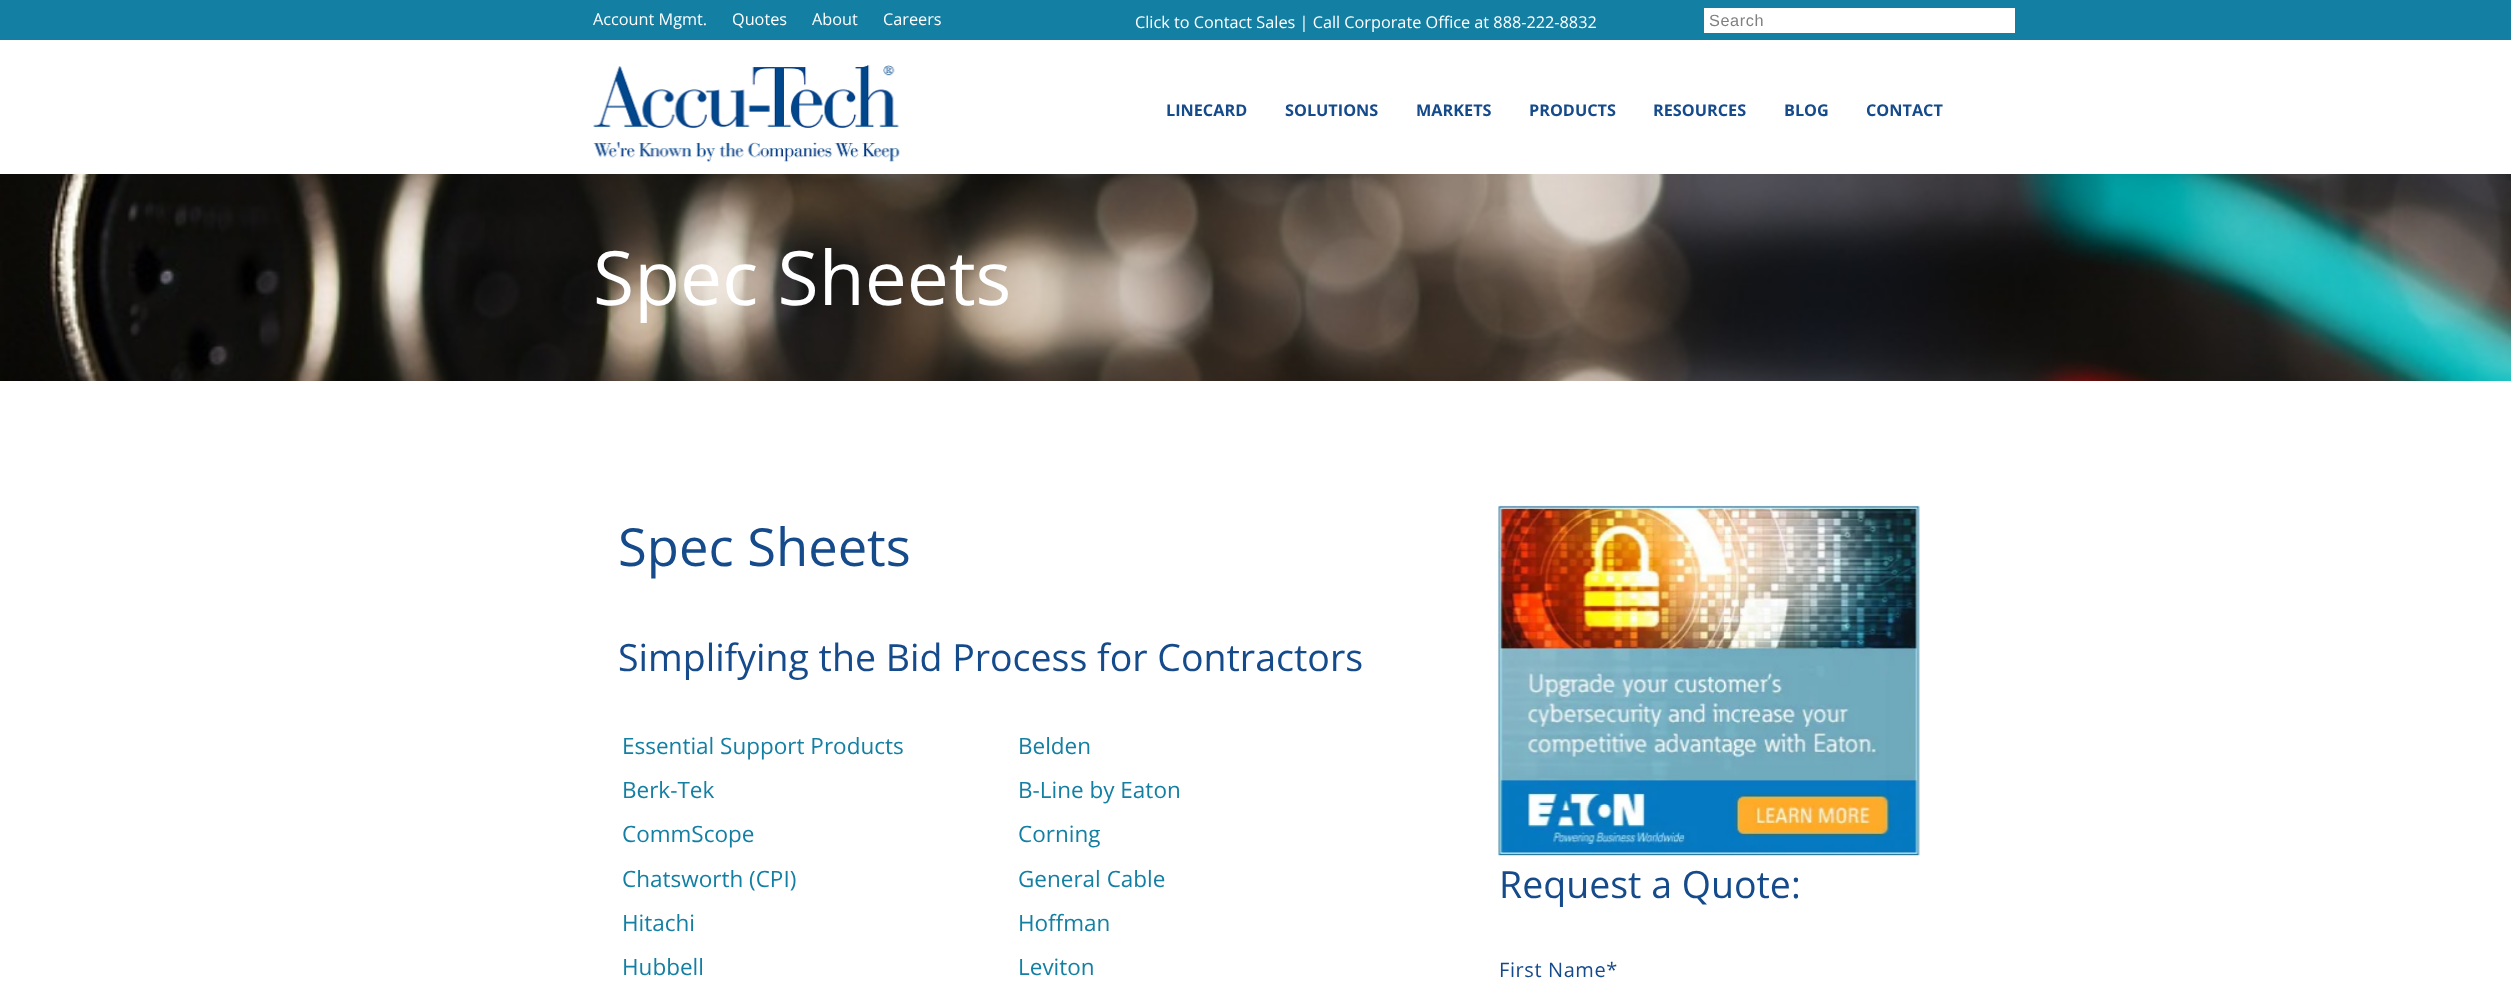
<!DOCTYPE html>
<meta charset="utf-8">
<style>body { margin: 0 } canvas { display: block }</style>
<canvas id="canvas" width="2511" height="994"></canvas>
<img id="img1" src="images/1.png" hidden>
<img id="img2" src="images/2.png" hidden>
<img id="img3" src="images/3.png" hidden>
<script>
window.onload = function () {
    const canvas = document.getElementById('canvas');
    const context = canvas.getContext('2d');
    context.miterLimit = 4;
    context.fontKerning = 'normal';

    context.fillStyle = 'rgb(19, 127, 163)';
    context.fillRect(0, 0, 2511, 994);
    context.fillStyle = 'rgb(255, 255, 255)';
    context.fillRect(1704, 8, 311, 25);
    context.fillRect(0, 40, 2511, 134);
    context.drawImage(document.getElementById('img1'), 593, 65, 307, 97);
    context.drawImage(document.getElementById('img2'), 0, 174, 2511, 207);
    context.fillRect(0, 381, 2511, 613);
    context.drawImage(document.getElementById('img3'), 1498, 505, 422, 351);
    context.font = '16.25px Open Sans';
    context.fillText('Account Mgmt.', 593, 25);
    context.fillText('Quotes', 732, 25);
    context.fillText('About', 812, 25);
    context.fillText('Careers', 883, 25);
    context.fillText('Click to Contact Sales | Call Corporate Office at 888-222-8832', 1135, 28);
    context.letterSpacing = '0.6px';
    context.font = '16.25px Liberation Sans';
    context.fillStyle = 'rgb(128, 128, 128)';
    context.fillText('Search', 1709, 26);
    context.letterSpacing = '0px';
    context.font = 'bold 16.25px Open Sans';
    context.fillStyle = 'rgb(21, 74, 139)';
    context.fillText('LINECARD', 1166, 116);
    context.fillText('SOLUTIONS', 1285, 116);
    context.fillText('MARKETS', 1416, 116);
    context.fillText('PRODUCTS', 1529, 116);
    context.fillText('RESOURCES', 1653, 116);
    context.fillText('BLOG', 1784, 116);
    context.fillText('CONTACT', 1866, 116);
    context.font = '75px Open Sans';
    context.fillStyle = 'rgb(255, 255, 255)';
    context.fillText('Spec Sheets', 593, 305);
    context.font = '52.5px Open Sans';
    context.fillStyle = 'rgb(21, 74, 139)';
    context.fillText('Spec Sheets', 618, 566);
    context.font = '37.5px Open Sans';
    context.fillText('Simplifying the Bid Process for Contractors', 618, 671);
    context.font = '22.5px Open Sans';
    context.fillStyle = 'rgb(19, 127, 163)';
    context.fillText('Essential Support Products', 622, 754);
    context.fillText('Belden', 1018, 754);
    context.fillText('Berk-Tek', 622, 798);
    context.fillText('B-Line by Eaton', 1018, 798);
    context.fillText('CommScope', 622, 842);
    context.fillText('Corning', 1018, 842);
    context.fillText('Chatsworth (CPI)', 622, 887);
    context.fillText('General Cable', 1018, 887);
    context.fillText('Hitachi', 622, 931);
    context.fillText('Hoffman', 1018, 931);
    context.fillText('Hubbell', 622, 975);
    context.fillText('Leviton', 1018, 975);
    context.font = '37.5px Open Sans';
    context.fillStyle = 'rgb(21, 74, 139)';
    context.fillText('Request a Quote:', 1499, 898);
    context.letterSpacing = '0.6px';
    context.font = '20px Open Sans';
    context.fillText('First Name*', 1499, 977);
};
</script>
